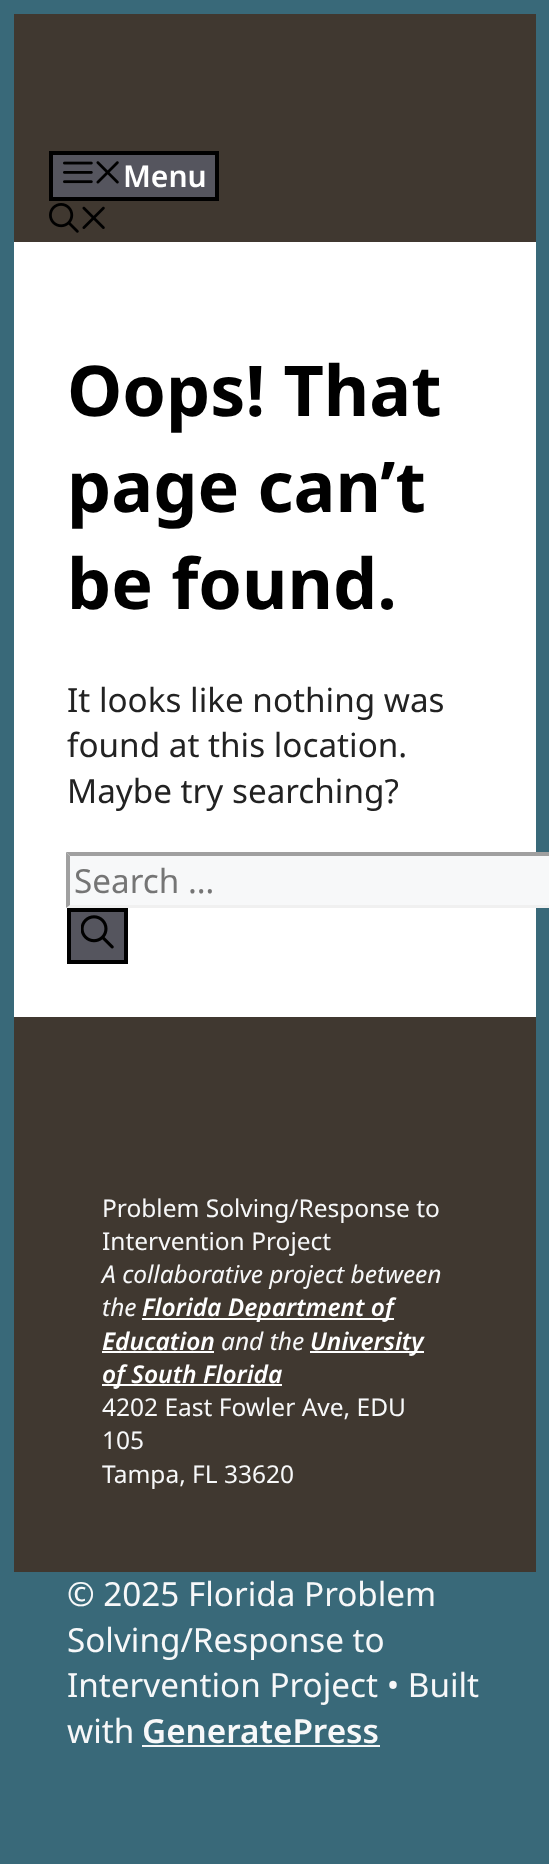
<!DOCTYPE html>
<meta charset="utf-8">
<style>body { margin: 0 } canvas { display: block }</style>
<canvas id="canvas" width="549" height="1864"></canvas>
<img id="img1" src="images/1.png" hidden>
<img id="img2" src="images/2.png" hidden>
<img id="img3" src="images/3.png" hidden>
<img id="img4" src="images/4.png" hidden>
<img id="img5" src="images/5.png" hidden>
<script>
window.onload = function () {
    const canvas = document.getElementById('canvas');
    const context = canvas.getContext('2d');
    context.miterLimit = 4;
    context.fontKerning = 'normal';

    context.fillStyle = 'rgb(57, 105, 121)';
    context.fillRect(0, 0, 549, 1864);
    context.fillStyle = 'rgb(64, 56, 48)';
    context.fillRect(14, 14, 522, 228);
    context.fillStyle = 'rgb(85, 85, 94)';
    context.beginPath();
    context.rect(51, 153, 166, 46);
    context.fill();
    context.strokeStyle = 'rgb(0, 0, 0)';
    context.lineWidth = 4;
    context.stroke();
    context.drawImage(document.getElementById('img1'), 63, 161, 30, 23);
    context.drawImage(document.getElementById('img2'), 96, 161, 23, 23);
    context.drawImage(document.getElementById('img3'), 49, 203, 30, 30);
    context.drawImage(document.getElementById('img4'), 82, 206, 23, 23);
    context.fillStyle = 'rgb(255, 255, 255)';
    context.fillRect(14, 242, 522, 775);
    context.fillStyle = 'rgb(247, 248, 249)';
    context.fillRect(67, 853, 482, 55);
    context.fillStyle = 'rgb(160, 160, 160)';
    context.beginPath();
    context.moveTo(66, 852);
    context.lineTo(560, 852);
    context.lineTo(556, 856);
    context.lineTo(70, 856);
    context.closePath();
    context.fill();
    context.fillStyle = 'rgb(240, 240, 240)';
    context.beginPath();
    context.moveTo(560, 908);
    context.lineTo(66, 908);
    context.lineTo(70, 905);
    context.lineTo(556, 905);
    context.closePath();
    context.fill();
    context.fillStyle = 'rgb(160, 160, 160)';
    context.beginPath();
    context.moveTo(66, 908);
    context.lineTo(66, 852);
    context.lineTo(70, 856);
    context.lineTo(70, 905);
    context.closePath();
    context.fill();
    context.fillStyle = 'rgb(85, 85, 94)';
    context.beginPath();
    context.rect(69, 910, 57, 52);
    context.fill();
    context.stroke();
    context.drawImage(document.getElementById('img5'), 81, 915, 33, 34);
    context.fillStyle = 'rgb(64, 56, 48)';
    context.fillRect(14, 1017, 522, 555);
    context.fillStyle = 'rgb(255, 255, 255)';
    context.fillRect(142, 1318, 252, 2);
    context.fillRect(102, 1351, 112, 2);
    context.fillRect(310, 1351, 114, 2);
    context.fillRect(102, 1384, 180, 2);
    context.fillStyle = 'rgb(247, 248, 249)';
    context.fillRect(142, 1745, 238, 2);
    context.font = '600 30px Noto Sans';
    context.fillStyle = 'rgb(255, 255, 255)';
    context.fillText('Menu', 123, 187);
    context.font = 'bold 70px Noto Sans';
    context.fillStyle = 'rgb(0, 0, 0)';
    context.fillText('Oops! That', 67, 416);
    context.fillText('page can’t', 67, 512);
    context.fillText('be found.', 67, 609);
    context.font = '33.25px Noto Sans';
    context.fillStyle = 'rgb(34, 34, 34)';
    context.fillText('It looks like nothing was', 67, 712);
    context.fillText('found at this location.', 67, 757);
    context.fillText('Maybe try searching?', 67, 803);
    context.fillStyle = 'rgb(117, 117, 117)';
    context.fillText('Search …', 74, 893);
    context.font = '24.5px Noto Sans';
    context.fillStyle = 'rgb(247, 248, 249)';
    context.fillText('Problem Solving/Response to', 102, 1217);
    context.fillText('Intervention Project', 102, 1250);
    context.font = 'italic 24.5px Noto Sans';
    context.fillText('A collaborative project between', 102, 1283);
    context.fillText('the', 102, 1316);
    context.font = 'italic 600 24.5px Noto Sans';
    context.fillStyle = 'rgb(255, 255, 255)';
    context.fillText('Florida Department of', 142, 1316);
    context.fillText('Education', 102, 1350);
    context.font = 'italic 24.5px Noto Sans';
    context.fillStyle = 'rgb(247, 248, 249)';
    context.fillText('and the', 221, 1350);
    context.font = 'italic 600 24.5px Noto Sans';
    context.fillStyle = 'rgb(255, 255, 255)';
    context.fillText('University', 310, 1350);
    context.fillText('of South Florida', 102, 1383);
    context.font = '24.5px Noto Sans';
    context.fillStyle = 'rgb(247, 248, 249)';
    context.fillText('4202 East Fowler Ave, EDU', 102, 1416);
    context.fillText('105', 102, 1449);
    context.fillText('Tampa, FL 33620', 102, 1483);
    context.font = '33.25px Noto Sans';
    context.fillText('© 2025 Florida Problem', 67, 1606);
    context.fillText('Solving/Response to', 67, 1652);
    context.fillText('Intervention Project • Built', 67, 1697);
    context.fillText('with', 67, 1743);
    context.font = '600 33.25px Noto Sans';
    context.fillText('GeneratePress', 142, 1743);
};
</script>
